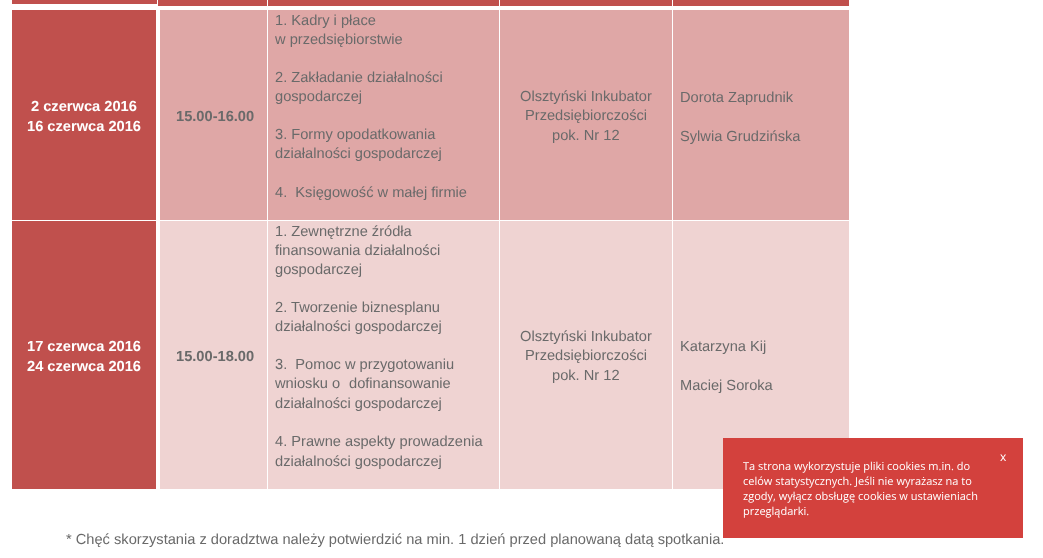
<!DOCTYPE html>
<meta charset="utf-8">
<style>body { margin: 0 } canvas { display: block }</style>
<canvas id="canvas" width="1043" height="558"></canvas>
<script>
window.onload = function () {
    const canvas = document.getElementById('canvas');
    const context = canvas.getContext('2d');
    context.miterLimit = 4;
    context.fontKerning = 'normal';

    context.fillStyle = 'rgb(255, 255, 255)';
    context.fillRect(0, 0, 1043, 558);
    context.fillStyle = 'rgb(192, 80, 77)';
    context.fillRect(12, 0, 145, 4);
    context.fillRect(158, 0, 691, 6);
    context.fillStyle = 'rgb(255, 255, 255)';
    context.fillRect(267, 0, 1, 9);
    context.fillRect(499, 0, 1, 9);
    context.fillRect(672, 0, 1, 9);
    context.fillStyle = 'rgb(192, 80, 77)';
    context.fillRect(12, 10, 144, 210);
    context.fillStyle = 'rgb(223, 167, 166)';
    context.fillRect(160, 10, 107, 210);
    context.fillRect(268, 10, 231, 210);
    context.fillRect(500, 10, 172, 210);
    context.fillRect(673, 10, 176, 210);
    context.fillStyle = 'rgb(192, 80, 77)';
    context.fillRect(12, 221, 144, 268);
    context.fillStyle = 'rgb(239, 211, 210)';
    context.fillRect(160, 221, 107, 268);
    context.fillRect(268, 221, 231, 268);
    context.fillRect(500, 221, 172, 268);
    context.fillRect(673, 221, 176, 268);
    context.font = 'bold 14.65px Liberation Sans';
    context.fillStyle = 'rgb(255, 255, 255)';
    context.fillText('2 czerwca 2016', 31, 111);
    context.fillText('16 czerwca 2016', 27, 131);
    context.fillStyle = 'rgb(106, 106, 106)';
    context.fillText('15.00-16.00', 176, 121);
    context.font = '14.65px Liberation Sans';
    context.fillText('1. Kadry i płace', 275, 25);
    context.fillText('w przedsiębiorstwie', 275, 44);
    context.fillText('2. Zakładanie działalności', 275, 82);
    context.fillText('gospodarczej', 275, 101);
    context.fillText('3. Formy opodatkowania', 275, 139);
    context.fillText('działalności gospodarczej', 275, 158);
    context.fillText('4.  Księgowość w małej firmie', 275, 197);
    context.fillText('Olsztyński Inkubator', 520, 101);
    context.fillText('Przedsiębiorczości', 525, 120);
    context.fillText('pok. Nr 12', 552, 140);
    context.fillText('Dorota Zaprudnik', 680, 102);
    context.fillText('Sylwia Grudzińska', 680, 141);
    context.font = 'bold 14.65px Liberation Sans';
    context.fillStyle = 'rgb(255, 255, 255)';
    context.fillText('17 czerwca 2016', 27, 351);
    context.fillText('24 czerwca 2016', 27, 371);
    context.fillStyle = 'rgb(106, 106, 106)';
    context.fillText('15.00-18.00', 176, 361);
    context.font = '14.65px Liberation Sans';
    context.fillText('1. Zewnętrzne źródła', 275, 236);
    context.fillText('finansowania działalności', 275, 255);
    context.fillText('gospodarczej', 275, 274);
    context.fillText('2. Tworzenie biznesplanu', 275, 312);
    context.fillText('działalności gospodarczej', 275, 331);
    context.fillText('3.  Pomoc w przygotowaniu', 275, 369);
    context.fillText('wniosku o', 275, 388);
    context.fillText('dofinansowanie', 349, 388);
    context.fillText('działalności gospodarczej', 275, 408);
    context.fillText('4. Prawne aspekty prowadzenia', 275, 446);
    context.fillText('działalności gospodarczej', 275, 466);
    context.fillText('Olsztyński Inkubator', 520, 341);
    context.fillText('Przedsiębiorczości', 525, 360);
    context.fillText('pok. Nr 12', 552, 380);
    context.fillText('Katarzyna Kij', 680, 351);
    context.fillText('Maciej Soroka', 680, 390);
    context.fillText('* Chęć skorzystania z doradztwa należy potwierdzić na min. 1 dzień przed planowaną datą spotkania.', 66, 544);
    context.fillStyle = 'rgb(211, 65, 61)';
    context.fillRect(723, 438, 300, 100);
    context.font = '12px Open Sans';
    context.fillStyle = 'rgb(255, 255, 255)';
    context.fillText('x', 1000, 461);
    context.font = '11px Open Sans';
    context.fillText('Ta strona wykorzystuje pliki cookies m.in. do', 743, 470);
    context.fillText('celów statystycznych. Jeśli nie wyrażasz na to', 743, 485);
    context.fillText('zgody, wyłącz obsługę cookies w ustawieniach', 743, 500);
    context.fillText('przeglądarki.', 743, 515);
};
</script>
